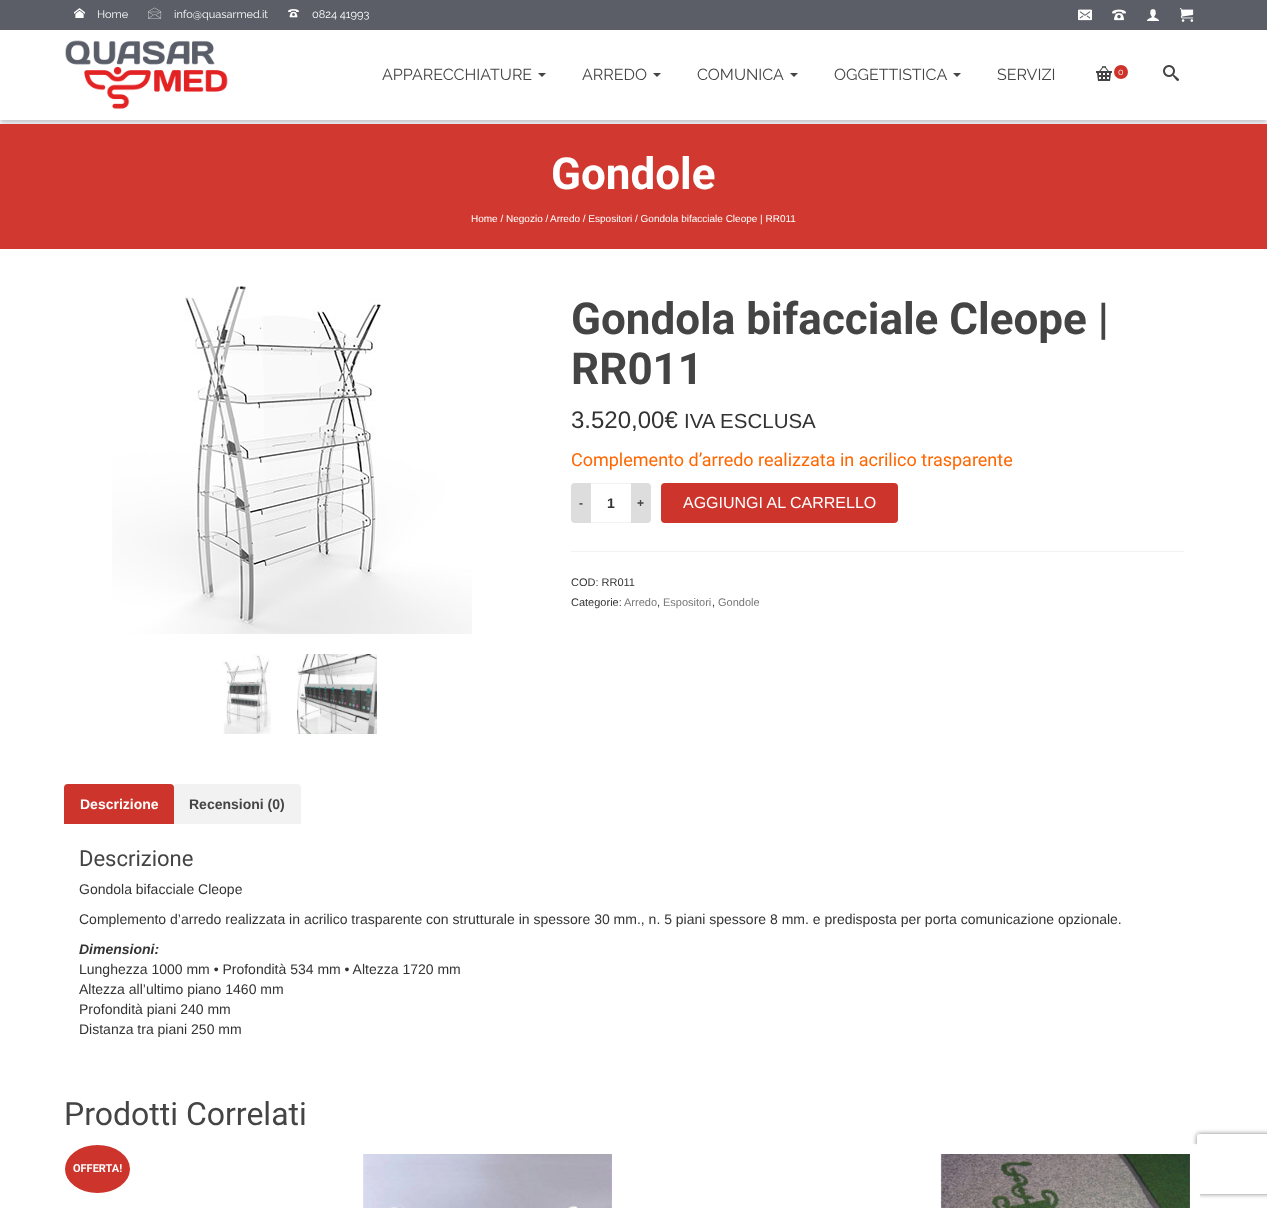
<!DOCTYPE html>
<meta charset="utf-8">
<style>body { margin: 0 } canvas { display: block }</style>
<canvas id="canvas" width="1267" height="1208"></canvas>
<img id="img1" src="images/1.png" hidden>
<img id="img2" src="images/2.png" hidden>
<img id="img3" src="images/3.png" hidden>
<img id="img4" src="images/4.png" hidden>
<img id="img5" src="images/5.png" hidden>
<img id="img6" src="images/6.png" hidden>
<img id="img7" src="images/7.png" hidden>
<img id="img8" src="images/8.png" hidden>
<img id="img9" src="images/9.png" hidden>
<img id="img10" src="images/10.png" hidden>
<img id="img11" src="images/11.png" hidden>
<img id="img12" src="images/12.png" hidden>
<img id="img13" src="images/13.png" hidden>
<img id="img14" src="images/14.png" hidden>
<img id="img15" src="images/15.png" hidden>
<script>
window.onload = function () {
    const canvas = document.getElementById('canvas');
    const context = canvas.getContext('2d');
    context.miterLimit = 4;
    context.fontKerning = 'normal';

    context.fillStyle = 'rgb(255, 255, 255)';
    context.fillRect(0, 0, 1267, 1208);
    context.save();
    context.beginPath();
    context.rect(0, 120, 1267, 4);
    context.clip();
    context.fillStyle = 'rgba(57, 63, 72, 0.3)';
    context.filter = 'blur(2.5px)';
    context.beginPath();
    context.rect(0, 3, 1267, 120);
    context.fill();
    context.filter = 'none';
    context.restore();
    context.fillStyle = 'rgb(91, 94, 103)';
    context.fillRect(0, 0, 1267, 30);
    context.drawImage(document.getElementById('img1'), 74, 8, 11, 10);
    context.drawImage(document.getElementById('img2'), 148, 7, 14, 12);
    context.drawImage(document.getElementById('img3'), 288, 9, 11, 9);
    context.drawImage(document.getElementById('img4'), 1078, 9, 14, 12);
    context.drawImage(document.getElementById('img5'), 1112, 9, 14, 12);
    context.drawImage(document.getElementById('img6'), 1146, 9, 14, 12);
    context.drawImage(document.getElementById('img7'), 1180, 7, 14, 15);
    context.drawImage(document.getElementById('img8'), 65, 40, 163, 69);
    context.fillStyle = 'rgb(68, 68, 68)';
    context.beginPath();
    context.moveTo(538, 73);
    context.lineTo(542, 77);
    context.lineTo(546, 73);
    context.closePath();
    context.fill();
    context.beginPath();
    context.moveTo(653, 73);
    context.lineTo(657, 77);
    context.lineTo(661, 73);
    context.closePath();
    context.fill();
    context.beginPath();
    context.moveTo(790, 73);
    context.lineTo(794, 77);
    context.lineTo(798, 73);
    context.closePath();
    context.fill();
    context.beginPath();
    context.moveTo(953, 73);
    context.lineTo(957, 77);
    context.lineTo(961, 73);
    context.closePath();
    context.fill();
    context.drawImage(document.getElementById('img9'), 1096, 66, 16, 15);
    context.fillStyle = 'rgb(204, 52, 44)';
    context.beginPath();
    context.arc(1121, 72, 7, 0, 2 * Math.PI);
    context.fill();
    context.drawImage(document.getElementById('img10'), 1163, 65, 16, 16);
    context.fillStyle = 'rgb(209, 57, 48)';
    context.fillRect(0, 124, 1267, 125);
    context.drawImage(document.getElementById('img11'), 112, 283, 360, 351);
    context.drawImage(document.getElementById('img12'), 222, 654, 49, 80);
    context.drawImage(document.getElementById('img13'), 297, 654, 80, 80);
    context.fillStyle = 'rgb(221, 221, 221)';
    context.beginPath();
    context.roundRect(571, 483, 20, 40, [4, 0, 0, 4]);
    context.fill();
    context.fillStyle = 'rgb(242, 242, 242)';
    context.fillRect(591, 483, 40, 1);
    context.fillRect(591, 522, 40, 1);
    context.fillStyle = 'rgb(221, 221, 221)';
    context.beginPath();
    context.roundRect(631, 483, 20, 40, [0, 4, 4, 0]);
    context.fill();
    context.fillStyle = 'rgb(204, 52, 44)';
    context.beginPath();
    context.roundRect(661, 483, 237, 40, 4);
    context.fill();
    context.fillStyle = 'rgb(242, 242, 242)';
    context.fillRect(571, 551, 613, 1);
    context.beginPath();
    context.roundRect(173, 784, 128, 40, [4, 4, 0, 0]);
    context.fill();
    context.fillStyle = 'rgb(204, 52, 44)';
    context.beginPath();
    context.roundRect(64, 784, 110, 40, [4, 4, 0, 0]);
    context.fill();
    context.beginPath();
    context.ellipse(97.5, 1169, 32.5, 24, 0, 0, 2 * Math.PI);
    context.fill();
    context.drawImage(document.getElementById('img14'), 363, 1154, 249, 54);
    context.save();
    context.beginPath();
    context.moveTo(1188, 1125);
    context.lineTo(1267, 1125);
    context.lineTo(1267, 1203);
    context.lineTo(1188, 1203);
    context.closePath();
    context.moveTo(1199, 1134);
    context.lineTo(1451, 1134);
    context.bezierCurveTo(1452, 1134, 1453, 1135, 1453, 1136);
    context.lineTo(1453, 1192);
    context.bezierCurveTo(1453, 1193, 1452, 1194, 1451, 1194);
    context.lineTo(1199, 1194);
    context.bezierCurveTo(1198, 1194, 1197, 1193, 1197, 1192);
    context.lineTo(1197, 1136);
    context.bezierCurveTo(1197, 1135, 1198, 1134, 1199, 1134);
    context.closePath();
    context.clip('evenodd');
    context.fillStyle = 'rgb(128, 128, 128)';
    context.filter = 'blur(2.5px)';
    context.beginPath();
    context.roundRect(1197, 1134, 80, 60, 2);
    context.fill();
    context.filter = 'none';
    context.restore();
    context.fillStyle = 'rgb(255, 255, 255)';
    context.beginPath();
    context.roundRect(931, 1144, 269, 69, 5);
    context.fill();
    context.drawImage(document.getElementById('img15'), 940, 1154, 250, 54);
    context.font = '11px Raleway';
    context.fillText('Home', 97, 18);
    context.fillText('info@quasarmed.it', 174, 18);
    context.fillText('0824 41993', 312, 18);
    context.font = '16px Raleway';
    context.fillStyle = 'rgb(68, 68, 68)';
    context.fillText('APPARECCHIATURE', 382, 80);
    context.fillText('ARREDO', 582, 80);
    context.fillText('COMUNICA', 697, 80);
    context.fillText('OGGETTISTICA', 834, 80);
    context.fillText('SERVIZI', 997, 80);
    context.font = '9px Raleway';
    context.fillStyle = 'rgb(255, 255, 255)';
    context.fillText('0', 1118, 75);
    context.font = 'bold 44px Roboto';
    context.fillText('Gondole', 551, 189);
    context.font = '10px Liberation Sans';
    context.fillText('Home / Negozio /', 471, 222);
    context.fillText('Arredo / Espositori / Gondola bifacciale Cleope | RR011', 550, 222);
    context.font = 'bold 44px Roboto';
    context.fillStyle = 'rgb(68, 68, 68)';
    context.fillText('Gondola bifacciale Cleope |', 571, 334);
    context.fillText('RR011', 571, 384);
    context.font = '24px Liberation Sans';
    context.fillStyle = 'rgb(51, 51, 51)';
    context.fillText('3.520,00€', 571, 428);
    context.font = '20.5px Liberation Sans';
    context.fillText('IVA ESCLUSA', 684, 428);
    context.font = '18px Roboto';
    context.fillStyle = 'rgb(255, 102, 0)';
    context.fillText('Complemento d’arredo realizzata in acrilico trasparente', 571, 466);
    context.font = 'bold 12px Liberation Sans';
    context.fillStyle = 'rgb(68, 68, 68)';
    context.fillText('-', 579, 507);
    context.font = 'bold 14px Liberation Sans';
    context.fillStyle = 'rgb(51, 51, 51)';
    context.fillText('1', 607, 508);
    context.font = 'bold 12px Liberation Sans';
    context.fillStyle = 'rgb(68, 68, 68)';
    context.fillText('+', 637, 507);
    context.font = '16px Liberation Sans';
    context.fillStyle = 'rgb(255, 255, 255)';
    context.fillText('AGGIUNGI AL CARRELLO', 683, 508);
    context.font = '11px Liberation Sans';
    context.fillStyle = 'rgb(51, 51, 51)';
    context.fillText('COD: RR011', 571, 586);
    context.fillText('Categorie:', 571, 606);
    context.fillStyle = 'rgb(119, 119, 119)';
    context.fillText('Arredo', 624, 606);
    context.fillStyle = 'rgb(51, 51, 51)';
    context.fillText(',', 657, 606);
    context.fillStyle = 'rgb(119, 119, 119)';
    context.fillText('Espositori', 663, 606);
    context.fillStyle = 'rgb(51, 51, 51)';
    context.fillText(',', 712, 606);
    context.fillStyle = 'rgb(119, 119, 119)';
    context.fillText('Gondole', 718, 606);
    context.font = 'bold 14px Liberation Sans';
    context.fillStyle = 'rgb(255, 255, 255)';
    context.fillText('Descrizione', 80, 809);
    context.fillStyle = 'rgb(68, 68, 68)';
    context.fillText('Recensioni (0)', 189, 809);
    context.font = '22px Roboto';
    context.fillText('Descrizione', 79, 866);
    context.font = '14px Liberation Sans';
    context.fillStyle = 'rgb(51, 51, 51)';
    context.fillText('Gondola bifacciale Cleope', 79, 894);
    context.fillText('Complemento d’arredo realizzata in acrilico trasparente con strutturale in spessore 30 mm., n. 5 piani spessore 8 mm. e predisposta per porta comunicazione opzionale.', 79, 924);
    context.font = 'italic bold 14px Liberation Sans';
    context.fillText('Dimensioni:', 79, 954);
    context.font = '14px Liberation Sans';
    context.fillText('Lunghezza 1000 mm • Profondità 534 mm • Altezza 1720 mm', 79, 974);
    context.fillText('Altezza all’ultimo piano 1460 mm', 79, 994);
    context.fillText('Profondità piani 240 mm', 79, 1014);
    context.fillText('Distanza tra piani 250 mm', 79, 1034);
    context.font = '32px Roboto';
    context.fillStyle = 'rgb(68, 68, 68)';
    context.fillText('Prodotti Correlati', 64, 1125);
    context.font = 'bold 11px Roboto';
    context.fillStyle = 'rgb(255, 255, 255)';
    context.fillText('OFFERTA!', 73, 1172);
};
</script>
